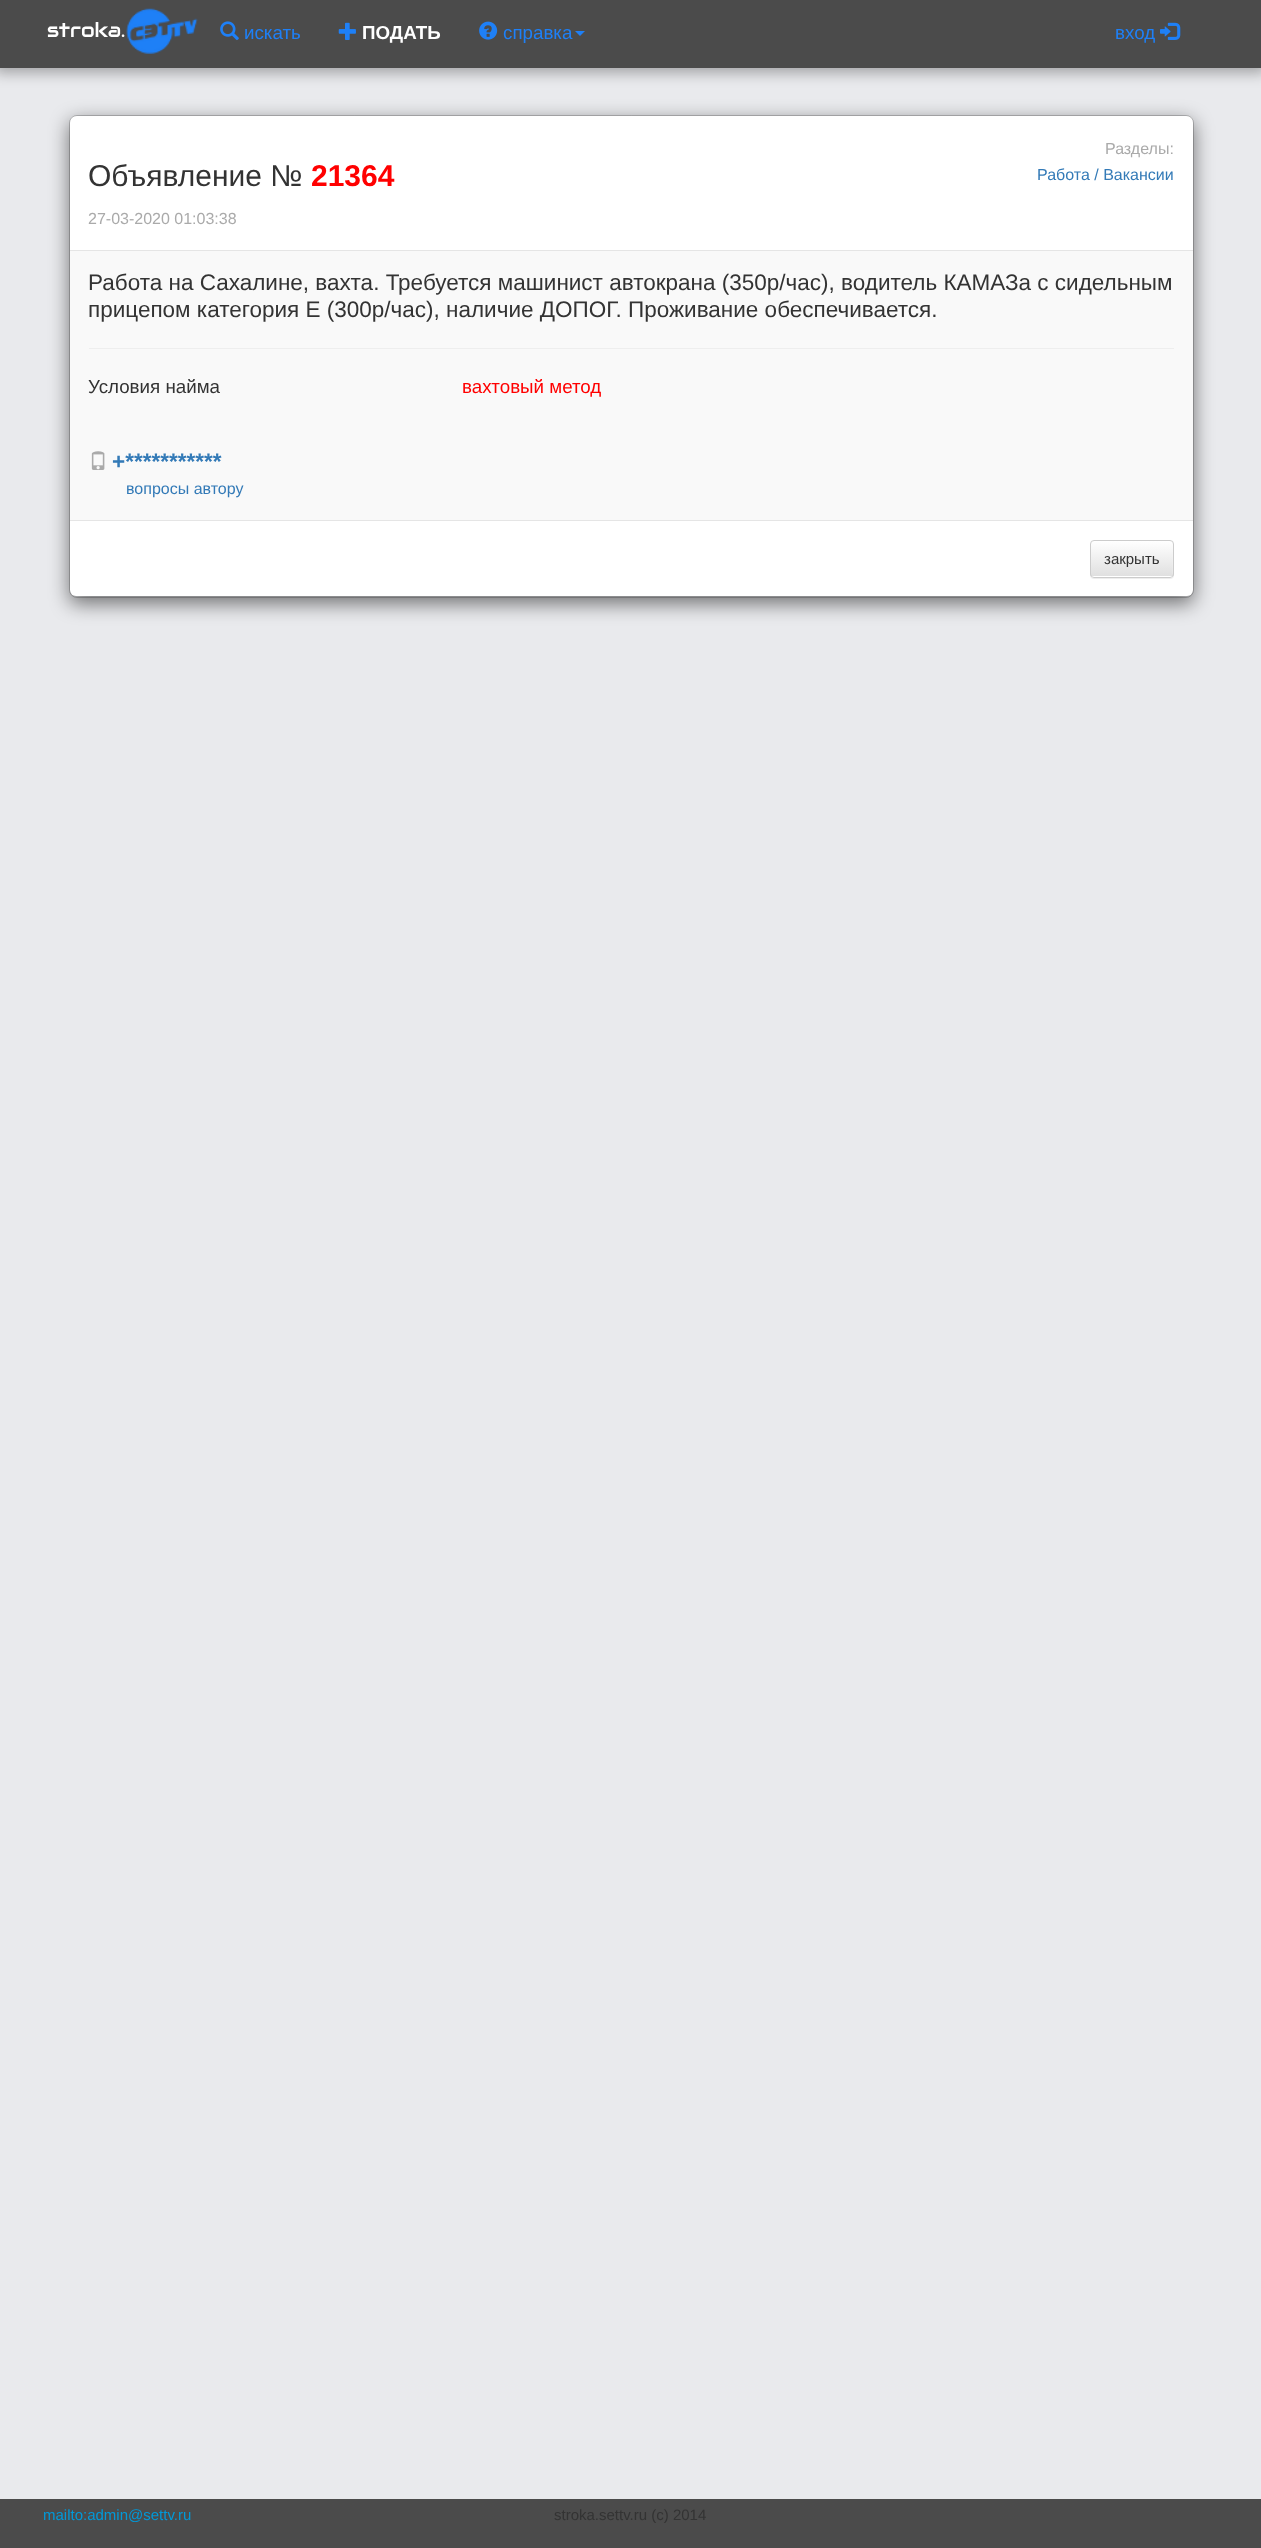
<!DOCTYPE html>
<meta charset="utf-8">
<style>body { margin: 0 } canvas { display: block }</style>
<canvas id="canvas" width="1261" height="2548"></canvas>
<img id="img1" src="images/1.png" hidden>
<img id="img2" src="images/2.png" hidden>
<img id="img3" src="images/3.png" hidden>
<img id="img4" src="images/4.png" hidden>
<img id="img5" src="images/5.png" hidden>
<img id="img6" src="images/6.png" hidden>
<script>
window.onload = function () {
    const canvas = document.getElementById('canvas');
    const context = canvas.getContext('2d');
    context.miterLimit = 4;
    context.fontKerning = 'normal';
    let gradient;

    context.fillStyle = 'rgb(233, 234, 237)';
    context.fillRect(0, 0, 1261, 2548);
    context.fillStyle = 'rgba(0, 0, 0, 0.3)';
    context.filter = 'blur(7px)';
    context.beginPath();
    context.rect(-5, -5, 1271, 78);
    context.fill();
    context.filter = 'none';
    context.fillStyle = 'rgb(75, 75, 75)';
    context.fillRect(0, 0, 1261, 68);
    context.drawImage(document.getElementById('img1'), 126, 8, 72, 46);
    context.drawImage(document.getElementById('img2'), 220, 21, 19, 20);
    context.drawImage(document.getElementById('img3'), 338, 22, 18, 18);
    context.drawImage(document.getElementById('img4'), 479, 21, 19, 19);
    context.fillStyle = 'rgb(30, 128, 247)';
    context.beginPath();
    context.moveTo(575, 31);
    context.lineTo(585, 31);
    context.lineTo(580, 36);
    context.closePath();
    context.fill();
    context.drawImage(document.getElementById('img5'), 1160, 22, 21, 18);
    context.fillStyle = 'rgba(0, 0, 0, 0.5)';
    context.filter = 'blur(9.5px)';
    context.beginPath();
    context.roundRect(69, 121, 1125, 483, 8);
    context.fill();
    context.filter = 'none';
    context.fillStyle = 'rgb(255, 255, 255)';
    context.beginPath();
    context.roundRect(70, 116, 1123, 480, 6);
    context.fill();
    context.beginPath();
    context.roundRect(69.5, 115.5, 1124, 482, 7.5);
    context.strokeStyle = 'rgba(0, 0, 0, 0.2)';
    context.stroke();
    context.fillStyle = 'rgb(229, 229, 229)';
    context.fillRect(70, 250, 1123, 1);
    context.fillStyle = 'rgb(249, 249, 249)';
    context.fillRect(70, 251, 1123, 269);
    context.fillStyle = 'rgb(238, 238, 238)';
    context.fillRect(89, 348, 1085, 1);
    context.drawImage(document.getElementById('img6'), 91, 451, 14, 19);
    context.fillStyle = 'rgb(229, 229, 229)';
    context.fillRect(70, 520, 1123, 1);
    context.fillStyle = 'rgba(0, 0, 0, 0.07)';
    context.filter = 'blur(0.5px)';
    context.beginPath();
    context.roundRect(1090, 541, 84, 38, 4);
    context.fill();
    context.filter = 'none';
    context.fillStyle = 'rgb(255, 255, 255)';
    context.beginPath();
    context.roundRect(1090, 540, 84, 38, 4);
    context.fill();
    context.save();
    context.beginPath();
    context.roundRect(1090, 540, 84, 38, 4);
    context.clip();
    gradient = context.createLinearGradient(1132, 541, 1132, 576);
    gradient.addColorStop(0, 'rgb(255, 255, 255)');
    gradient.addColorStop(1, 'rgb(224, 224, 224)');
    context.fillStyle = gradient;
    context.fillRect(1090, 541, 84, 35);
    context.restore();
    context.fillStyle = 'rgba(255, 255, 255, 0.15)';
    context.beginPath();
    context.moveTo(1094, 542);
    context.lineTo(1157, 542);
    context.bezierCurveTo(1174, 542, 1172, 539, 1172, 555);
    context.lineTo(1172, 576);
    context.bezierCurveTo(1173, 575, 1173, 574, 1173, 574);
    context.lineTo(1173, 544);
    context.bezierCurveTo(1173, 542, 1172, 541, 1170, 541);
    context.lineTo(1094, 541);
    context.bezierCurveTo(1092, 541, 1091, 542, 1091, 544);
    context.lineTo(1091, 545);
    context.bezierCurveTo(1091, 544, 1092, 542, 1094, 542);
    context.closePath();
    context.fill();
    context.beginPath();
    context.roundRect(1090.5, 540.5, 83, 37, 3.5);
    context.strokeStyle = 'rgb(204, 204, 204)';
    context.stroke();
    context.fillStyle = 'rgb(75, 75, 75)';
    context.fillRect(0, 2499, 1261, 49);
    context.font = '20px Audiowide';
    context.fillStyle = 'rgb(255, 255, 255)';
    context.fillText('stroka.', 47, 37);
    context.font = '18.75px Liberation Sans';
    context.fillStyle = 'rgb(30, 128, 247)';
    context.fillText('искать', 244, 39);
    context.font = 'bold 18.75px Liberation Sans';
    context.fillStyle = 'rgb(255, 255, 255)';
    context.fillText('ПОДАТЬ', 362, 39);
    context.font = '18.75px Liberation Sans';
    context.fillStyle = 'rgb(30, 128, 247)';
    context.fillText('справка', 503, 39);
    context.fillText('вход', 1115, 39);
    context.font = '30px Liberation Sans';
    context.fillStyle = 'rgb(51, 51, 51)';
    context.fillText('Объявление №', 88, 186);
    context.font = 'bold 30px Liberation Sans';
    context.fillStyle = 'rgb(255, 0, 0)';
    context.fillText('21364', 311, 186);
    context.font = '16px Liberation Sans';
    context.fillStyle = 'rgb(170, 170, 170)';
    context.fillText('27-03-2020 01:03:38', 88, 224);
    context.fillText('Разделы:', 1105, 154);
    context.fillStyle = 'rgb(51, 122, 183)';
    context.fillText('Работа / Вакансии', 1037, 180);
    context.font = '22.5px Liberation Sans';
    context.fillStyle = 'rgb(51, 51, 51)';
    context.fillText('Работа на Сахалине, вахта. Требуется машинист автокрана (350р/час), водитель КАМАЗа с сидельным', 88, 290);
    context.fillText('прицепом категория Е (300р/час), наличие ДОПОГ. Проживание обеспечивается.', 88, 317);
    context.font = '18.75px Liberation Sans';
    context.fillText('Условия найма', 88, 393);
    context.fillStyle = 'rgb(255, 0, 0)';
    context.fillText('вахтовый метод', 462, 393);
    context.font = 'bold 22.5px Liberation Sans';
    context.fillStyle = 'rgb(51, 122, 183)';
    context.fillText('+***********', 112, 469);
    context.font = '16px Liberation Sans';
    context.fillText('вопросы автору', 126, 494);
    context.font = '15px Liberation Sans';
    context.fillStyle = 'rgb(51, 51, 51)';
    context.fillText('закрыть', 1104, 564);
    context.fillStyle = 'rgb(1, 153, 217)';
    context.fillText('mailto:admin@settv.ru', 43, 2520);
    context.fillStyle = 'rgb(51, 51, 51)';
    context.fillText('stroka.settv.ru (c) 2014', 554, 2520);
};
</script>
